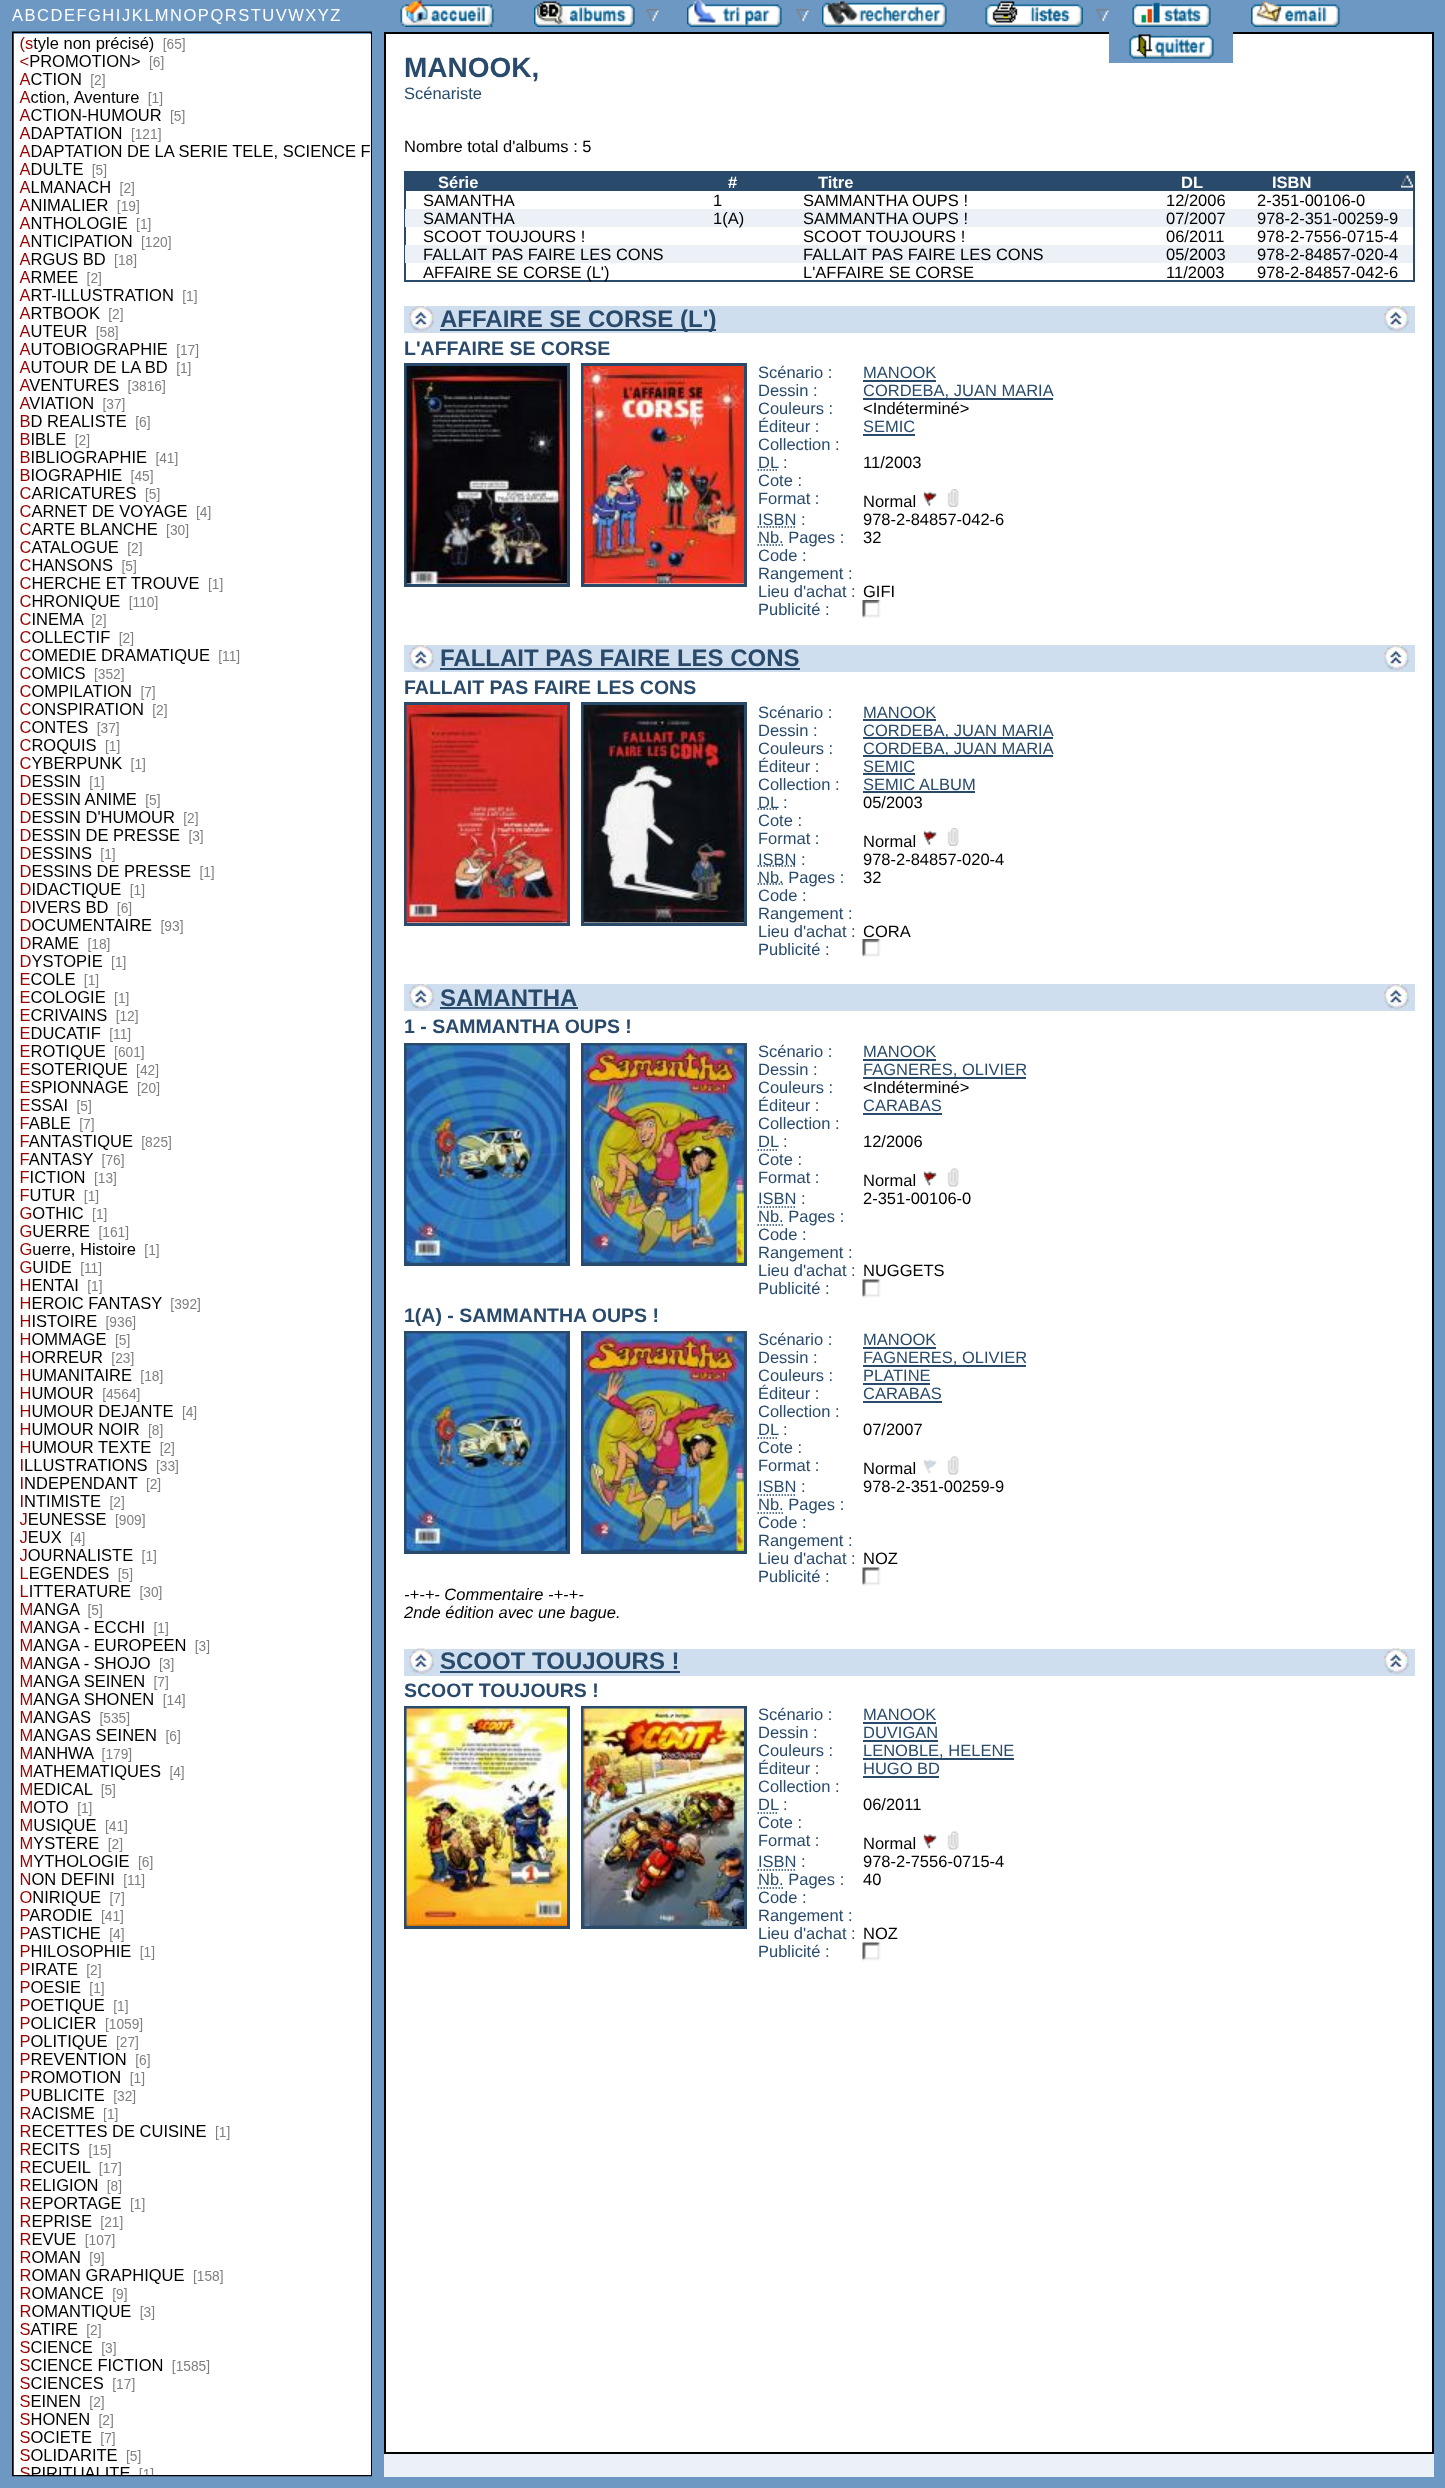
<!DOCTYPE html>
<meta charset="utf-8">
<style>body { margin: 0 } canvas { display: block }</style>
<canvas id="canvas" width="1445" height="2488"></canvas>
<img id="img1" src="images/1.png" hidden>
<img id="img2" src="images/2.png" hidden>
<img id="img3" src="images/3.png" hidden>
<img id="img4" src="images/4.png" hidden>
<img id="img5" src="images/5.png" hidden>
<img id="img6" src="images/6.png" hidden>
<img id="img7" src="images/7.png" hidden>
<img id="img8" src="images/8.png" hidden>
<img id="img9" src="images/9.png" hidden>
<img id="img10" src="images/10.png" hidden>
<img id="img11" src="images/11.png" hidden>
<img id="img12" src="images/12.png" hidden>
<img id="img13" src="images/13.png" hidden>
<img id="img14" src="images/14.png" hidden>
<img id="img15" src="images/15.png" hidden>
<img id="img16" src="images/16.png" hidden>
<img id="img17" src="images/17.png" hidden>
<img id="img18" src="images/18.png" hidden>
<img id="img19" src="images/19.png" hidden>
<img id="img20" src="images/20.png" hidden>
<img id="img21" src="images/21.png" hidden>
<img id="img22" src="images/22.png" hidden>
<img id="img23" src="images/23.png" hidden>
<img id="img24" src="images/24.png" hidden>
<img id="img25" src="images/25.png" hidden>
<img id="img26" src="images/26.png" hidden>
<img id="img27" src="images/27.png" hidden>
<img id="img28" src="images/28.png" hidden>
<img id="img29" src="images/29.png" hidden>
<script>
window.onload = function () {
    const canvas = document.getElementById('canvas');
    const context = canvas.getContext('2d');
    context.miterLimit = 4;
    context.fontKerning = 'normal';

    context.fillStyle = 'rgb(109, 152, 195)';
    context.fillRect(0, 0, 1445, 2488);
    context.drawImage(document.getElementById('img1'), 12, 9, 360, 2468);
    context.drawImage(document.getElementById('img2'), 400, 0, 94, 27);
    context.drawImage(document.getElementById('img3'), 646, 9, 13, 12);
    context.drawImage(document.getElementById('img4'), 534, 1, 101, 26);
    context.drawImage(document.getElementById('img5'), 796, 9, 13, 12);
    context.drawImage(document.getElementById('img6'), 687, 0, 95, 27);
    context.drawImage(document.getElementById('img7'), 822, 1, 125, 26);
    context.drawImage(document.getElementById('img5'), 1096, 9, 13, 12);
    context.drawImage(document.getElementById('img8'), 985, 1, 98, 26);
    context.drawImage(document.getElementById('img9'), 1132, 2, 79, 25);
    context.drawImage(document.getElementById('img10'), 1251, 1, 89, 26);
    context.fillStyle = 'rgb(255, 255, 255)';
    context.beginPath();
    context.rect(385, 33, 1048, 2420);
    context.fill();
    context.strokeStyle = 'rgb(0, 0, 0)';
    context.lineWidth = 2;
    context.stroke();
    context.fillStyle = 'rgb(109, 152, 195)';
    context.fillRect(1109, 32, 124, 31);
    context.drawImage(document.getElementById('img11'), 1129, 34, 85, 25);
    context.strokeStyle = 'rgb(41, 74, 107)';
    context.strokeRect(405, 172, 1009, 109);
    context.fillStyle = 'rgb(41, 74, 107)';
    context.fillRect(406, 173, 1007, 18);
    context.drawImage(document.getElementById('img12'), 1401, 175, 12, 13);
    context.fillStyle = 'rgb(235, 241, 247)';
    context.fillRect(405, 209, 1008, 18);
    context.fillRect(405, 245, 1008, 18);
    context.fillStyle = 'rgb(206, 222, 239)';
    context.fillRect(404, 306, 1011, 27);
    context.drawImage(document.getElementById('img13'), 409, 306, 25, 26);
    context.drawImage(document.getElementById('img13'), 1384, 306, 25, 26);
    context.fillStyle = 'rgb(41, 74, 107)';
    context.fillRect(440, 329, 276, 2);
    context.lineWidth = 3;
    context.strokeRect(405.5, 364.5, 163, 221);
    context.drawImage(document.getElementById('img14'), 406, 366, 161, 218);
    context.strokeRect(582.5, 364.5, 163, 221);
    context.drawImage(document.getElementById('img15'), 583, 366, 161, 218);
    context.fillRect(863, 380, 73, 2);
    context.fillRect(863, 398, 190, 2);
    context.fillRect(863, 434, 52, 2);
    context.beginPath();
    context.moveTo(757.5, 470);
    context.lineTo(778.5, 470);
    context.lineWidth = 1.5;
    context.setLineDash([1.5, 1.5]);
    context.stroke();
    context.drawImage(document.getElementById('img16'), 923, 491, 14, 15);
    context.drawImage(document.getElementById('img17'), 947, 489, 12, 18);
    context.beginPath();
    context.moveTo(757.5, 527);
    context.lineTo(796, 527);
    context.stroke();
    context.beginPath();
    context.moveTo(757.5, 545);
    context.lineTo(783, 545);
    context.stroke();
    context.drawImage(document.getElementById('img18'), 862, 600, 19, 18);
    context.fillStyle = 'rgb(206, 222, 239)';
    context.fillRect(404, 645, 1011, 27);
    context.drawImage(document.getElementById('img13'), 409, 645, 25, 26);
    context.drawImage(document.getElementById('img13'), 1384, 645, 25, 26);
    context.fillStyle = 'rgb(41, 74, 107)';
    context.fillRect(440, 668, 360, 2);
    context.lineWidth = 3;
    context.setLineDash([]);
    context.strokeRect(405.5, 703.5, 163, 221);
    context.drawImage(document.getElementById('img19'), 406, 705, 161, 218);
    context.strokeRect(582.5, 703.5, 163, 221);
    context.drawImage(document.getElementById('img20'), 583, 705, 161, 218);
    context.fillRect(863, 719, 73, 2);
    context.fillRect(863, 737, 190, 2);
    context.fillRect(863, 755, 190, 2);
    context.fillRect(863, 773, 52, 2);
    context.fillRect(863, 791, 112, 2);
    context.beginPath();
    context.moveTo(757.5, 809);
    context.lineTo(778.5, 809);
    context.lineWidth = 1.5;
    context.setLineDash([1.5, 1.5]);
    context.stroke();
    context.drawImage(document.getElementById('img16'), 923, 830, 14, 15);
    context.drawImage(document.getElementById('img17'), 947, 828, 12, 18);
    context.beginPath();
    context.moveTo(757.5, 866);
    context.lineTo(796, 866);
    context.stroke();
    context.beginPath();
    context.moveTo(757.5, 884);
    context.lineTo(783, 884);
    context.stroke();
    context.drawImage(document.getElementById('img18'), 862, 939, 19, 18);
    context.fillStyle = 'rgb(206, 222, 239)';
    context.fillRect(404, 984, 1011, 27);
    context.drawImage(document.getElementById('img13'), 409, 984, 25, 26);
    context.drawImage(document.getElementById('img13'), 1384, 984, 25, 26);
    context.fillStyle = 'rgb(41, 74, 107)';
    context.fillRect(440, 1007, 138, 2);
    context.lineWidth = 3;
    context.setLineDash([]);
    context.strokeRect(405.5, 1044.5, 163, 220);
    context.drawImage(document.getElementById('img21'), 406, 1045, 161, 218);
    context.strokeRect(582.5, 1044.5, 163, 220);
    context.drawImage(document.getElementById('img22'), 583, 1045, 161, 218);
    context.fillRect(863, 1059, 73, 2);
    context.fillRect(863, 1077, 163, 2);
    context.fillRect(863, 1113, 79, 2);
    context.beginPath();
    context.moveTo(757.5, 1150);
    context.lineTo(778.5, 1150);
    context.lineWidth = 1.5;
    context.setLineDash([1.5, 1.5]);
    context.stroke();
    context.drawImage(document.getElementById('img23'), 923, 1171, 14, 15);
    context.drawImage(document.getElementById('img24'), 947, 1168, 12, 19);
    context.beginPath();
    context.moveTo(757.5, 1207);
    context.lineTo(796, 1207);
    context.stroke();
    context.beginPath();
    context.moveTo(757.5, 1225);
    context.lineTo(783, 1225);
    context.stroke();
    context.drawImage(document.getElementById('img25'), 862, 1279, 19, 19);
    context.lineWidth = 3;
    context.setLineDash([]);
    context.strokeRect(405.5, 1332.5, 163, 220);
    context.drawImage(document.getElementById('img21'), 406, 1333, 161, 218);
    context.strokeRect(582.5, 1332.5, 163, 220);
    context.drawImage(document.getElementById('img22'), 583, 1333, 161, 218);
    context.fillRect(863, 1347, 73, 2);
    context.fillRect(863, 1365, 163, 2);
    context.fillRect(863, 1383, 67, 2);
    context.fillRect(863, 1401, 79, 2);
    context.beginPath();
    context.moveTo(757.5, 1438);
    context.lineTo(778.5, 1438);
    context.lineWidth = 1.5;
    context.setLineDash([1.5, 1.5]);
    context.stroke();
    context.drawImage(document.getElementById('img26'), 923, 1459, 14, 15);
    context.drawImage(document.getElementById('img24'), 947, 1456, 12, 19);
    context.beginPath();
    context.moveTo(757.5, 1495);
    context.lineTo(796, 1495);
    context.stroke();
    context.beginPath();
    context.moveTo(757.5, 1513);
    context.lineTo(783, 1513);
    context.stroke();
    context.drawImage(document.getElementById('img25'), 862, 1567, 19, 19);
    context.fillStyle = 'rgb(206, 222, 239)';
    context.fillRect(404, 1649, 1011, 27);
    context.drawImage(document.getElementById('img27'), 409, 1648, 25, 26);
    context.drawImage(document.getElementById('img27'), 1384, 1648, 25, 26);
    context.fillStyle = 'rgb(41, 74, 107)';
    context.fillRect(440, 1671, 240, 2);
    context.lineWidth = 3;
    context.setLineDash([]);
    context.strokeRect(405.5, 1707.5, 163, 220);
    context.drawImage(document.getElementById('img28'), 406, 1708, 161, 218);
    context.strokeRect(582.5, 1707.5, 163, 220);
    context.drawImage(document.getElementById('img29'), 583, 1708, 161, 218);
    context.fillRect(863, 1722, 73, 2);
    context.fillRect(863, 1740, 75, 2);
    context.fillRect(863, 1758, 151, 2);
    context.fillRect(863, 1776, 76, 2);
    context.beginPath();
    context.moveTo(757.5, 1813);
    context.lineTo(778.5, 1813);
    context.lineWidth = 1.5;
    context.setLineDash([1.5, 1.5]);
    context.stroke();
    context.drawImage(document.getElementById('img23'), 923, 1834, 14, 15);
    context.drawImage(document.getElementById('img24'), 947, 1831, 12, 19);
    context.beginPath();
    context.moveTo(757.5, 1870);
    context.lineTo(796, 1870);
    context.stroke();
    context.beginPath();
    context.moveTo(757.5, 1888);
    context.lineTo(783, 1888);
    context.stroke();
    context.drawImage(document.getElementById('img25'), 862, 1942, 19, 19);
    context.fillStyle = 'rgb(235, 241, 247)';
    context.fillRect(384, 2454, 1050, 23);
    context.font = 'bold 28px Liberation Sans';
    context.fillStyle = 'rgb(41, 74, 107)';
    context.fillText('MANOOK,', 404, 77);
    context.font = '16.5px Liberation Sans';
    context.fillText('Scénariste', 404, 99);
    context.fillStyle = 'rgb(0, 0, 0)';
    context.fillText('Nombre total d\'albums : 5', 404, 152);
    context.font = 'bold 16.5px Liberation Sans';
    context.fillStyle = 'rgb(255, 255, 255)';
    context.fillText('Série', 438, 188);
    context.fillText('#', 728, 188);
    context.fillText('Titre', 818, 188);
    context.fillText('DL', 1181, 188);
    context.fillText('ISBN', 1272, 188);
    context.font = '16.5px Liberation Sans';
    context.fillStyle = 'rgb(0, 0, 0)';
    context.fillText('SAMANTHA', 423, 206);
    context.fillText('1', 713, 206);
    context.fillText('SAMMANTHA OUPS !', 803, 206);
    context.fillText('12/2006', 1166, 206);
    context.fillText('2-351-00106-0', 1257, 206);
    context.fillText('SAMANTHA', 423, 224);
    context.fillText('1(A)', 713, 224);
    context.fillText('SAMMANTHA OUPS !', 803, 224);
    context.fillText('07/2007', 1166, 224);
    context.fillText('978-2-351-00259-9', 1257, 224);
    context.fillText('SCOOT TOUJOURS !', 423, 242);
    context.fillText('SCOOT TOUJOURS !', 803, 242);
    context.fillText('06/2011', 1166, 242);
    context.fillText('978-2-7556-0715-4', 1257, 242);
    context.fillText('FALLAIT PAS FAIRE LES CONS', 423, 260);
    context.fillText('FALLAIT PAS FAIRE LES CONS', 803, 260);
    context.fillText('05/2003', 1166, 260);
    context.fillText('978-2-84857-020-4', 1257, 260);
    context.fillText('AFFAIRE SE CORSE (L\')', 423, 278);
    context.fillText('L\'AFFAIRE SE CORSE', 803, 278);
    context.fillText('11/2003', 1166, 278);
    context.fillText('978-2-84857-042-6', 1257, 278);
    context.font = 'bold 24px Liberation Sans';
    context.fillStyle = 'rgb(41, 74, 107)';
    context.fillText('AFFAIRE SE CORSE (L\')', 440, 327);
    context.font = 'bold 19.5px Liberation Sans';
    context.fillText('L\'AFFAIRE SE CORSE', 404, 355);
    context.font = '16.5px Liberation Sans';
    context.fillText('Scénario :', 758, 378);
    context.fillText('MANOOK', 863, 378);
    context.fillText('Dessin :', 758, 396);
    context.fillText('CORDEBA, JUAN MARIA', 863, 396);
    context.fillText('Couleurs :', 758, 414);
    context.fillStyle = 'rgb(0, 0, 0)';
    context.fillText('<Indéterminé>', 863, 414);
    context.fillStyle = 'rgb(41, 74, 107)';
    context.fillText('Éditeur :', 758, 432);
    context.fillText('SEMIC', 863, 432);
    context.fillText('Collection :', 758, 450);
    context.fillText('DL :', 758, 468);
    context.fillStyle = 'rgb(0, 0, 0)';
    context.fillText('11/2003', 863, 468);
    context.fillStyle = 'rgb(41, 74, 107)';
    context.fillText('Cote :', 758, 486);
    context.fillText('Format :', 758, 504);
    context.fillStyle = 'rgb(0, 0, 0)';
    context.fillText('Normal', 863, 507);
    context.fillStyle = 'rgb(41, 74, 107)';
    context.fillText('ISBN :', 758, 525);
    context.fillStyle = 'rgb(0, 0, 0)';
    context.fillText('978-2-84857-042-6', 863, 525);
    context.fillStyle = 'rgb(41, 74, 107)';
    context.fillText('Nb. Pages :', 758, 543);
    context.fillStyle = 'rgb(0, 0, 0)';
    context.fillText('32', 863, 543);
    context.fillStyle = 'rgb(41, 74, 107)';
    context.fillText('Code :', 758, 561);
    context.fillText('Rangement :', 758, 579);
    context.fillText('Lieu d\'achat :', 758, 597);
    context.fillStyle = 'rgb(0, 0, 0)';
    context.fillText('GIFI', 863, 597);
    context.fillStyle = 'rgb(41, 74, 107)';
    context.fillText('Publicité :', 758, 615);
    context.font = 'bold 24px Liberation Sans';
    context.fillText('FALLAIT PAS FAIRE LES CONS', 440, 666);
    context.font = 'bold 19.5px Liberation Sans';
    context.fillText('FALLAIT PAS FAIRE LES CONS', 404, 694);
    context.font = '16.5px Liberation Sans';
    context.fillText('Scénario :', 758, 718);
    context.fillText('MANOOK', 863, 718);
    context.fillText('Dessin :', 758, 736);
    context.fillText('CORDEBA, JUAN MARIA', 863, 736);
    context.fillText('Couleurs :', 758, 754);
    context.fillText('CORDEBA, JUAN MARIA', 863, 754);
    context.fillText('Éditeur :', 758, 772);
    context.fillText('SEMIC', 863, 772);
    context.fillText('Collection :', 758, 790);
    context.fillText('SEMIC ALBUM', 863, 790);
    context.fillText('DL :', 758, 808);
    context.fillStyle = 'rgb(0, 0, 0)';
    context.fillText('05/2003', 863, 808);
    context.fillStyle = 'rgb(41, 74, 107)';
    context.fillText('Cote :', 758, 826);
    context.fillText('Format :', 758, 844);
    context.fillStyle = 'rgb(0, 0, 0)';
    context.fillText('Normal', 863, 847);
    context.fillStyle = 'rgb(41, 74, 107)';
    context.fillText('ISBN :', 758, 865);
    context.fillStyle = 'rgb(0, 0, 0)';
    context.fillText('978-2-84857-020-4', 863, 865);
    context.fillStyle = 'rgb(41, 74, 107)';
    context.fillText('Nb. Pages :', 758, 883);
    context.fillStyle = 'rgb(0, 0, 0)';
    context.fillText('32', 863, 883);
    context.fillStyle = 'rgb(41, 74, 107)';
    context.fillText('Code :', 758, 901);
    context.fillText('Rangement :', 758, 919);
    context.fillText('Lieu d\'achat :', 758, 937);
    context.fillStyle = 'rgb(0, 0, 0)';
    context.fillText('CORA', 863, 937);
    context.fillStyle = 'rgb(41, 74, 107)';
    context.fillText('Publicité :', 758, 955);
    context.font = 'bold 24px Liberation Sans';
    context.fillText('SAMANTHA', 440, 1006);
    context.font = 'bold 19.5px Liberation Sans';
    context.fillText('1 - SAMMANTHA OUPS !', 404, 1033);
    context.font = '16.5px Liberation Sans';
    context.fillText('Scénario :', 758, 1057);
    context.fillText('MANOOK', 863, 1057);
    context.fillText('Dessin :', 758, 1075);
    context.fillText('FAGNERES, OLIVIER', 863, 1075);
    context.fillText('Couleurs :', 758, 1093);
    context.fillStyle = 'rgb(0, 0, 0)';
    context.fillText('<Indéterminé>', 863, 1093);
    context.fillStyle = 'rgb(41, 74, 107)';
    context.fillText('Éditeur :', 758, 1111);
    context.fillText('CARABAS', 863, 1111);
    context.fillText('Collection :', 758, 1129);
    context.fillText('DL :', 758, 1147);
    context.fillStyle = 'rgb(0, 0, 0)';
    context.fillText('12/2006', 863, 1147);
    context.fillStyle = 'rgb(41, 74, 107)';
    context.fillText('Cote :', 758, 1165);
    context.fillText('Format :', 758, 1183);
    context.fillStyle = 'rgb(0, 0, 0)';
    context.fillText('Normal', 863, 1186);
    context.fillStyle = 'rgb(41, 74, 107)';
    context.fillText('ISBN :', 758, 1204);
    context.fillStyle = 'rgb(0, 0, 0)';
    context.fillText('2-351-00106-0', 863, 1204);
    context.fillStyle = 'rgb(41, 74, 107)';
    context.fillText('Nb. Pages :', 758, 1222);
    context.fillText('Code :', 758, 1240);
    context.fillText('Rangement :', 758, 1258);
    context.fillText('Lieu d\'achat :', 758, 1276);
    context.fillStyle = 'rgb(0, 0, 0)';
    context.fillText('NUGGETS', 863, 1276);
    context.fillStyle = 'rgb(41, 74, 107)';
    context.fillText('Publicité :', 758, 1294);
    context.font = 'bold 19.5px Liberation Sans';
    context.fillText('1(A) - SAMMANTHA OUPS !', 404, 1322);
    context.font = '16.5px Liberation Sans';
    context.fillText('Scénario :', 758, 1345);
    context.fillText('MANOOK', 863, 1345);
    context.fillText('Dessin :', 758, 1363);
    context.fillText('FAGNERES, OLIVIER', 863, 1363);
    context.fillText('Couleurs :', 758, 1381);
    context.fillText('PLATINE', 863, 1381);
    context.fillText('Éditeur :', 758, 1399);
    context.fillText('CARABAS', 863, 1399);
    context.fillText('Collection :', 758, 1417);
    context.fillText('DL :', 758, 1435);
    context.fillStyle = 'rgb(0, 0, 0)';
    context.fillText('07/2007', 863, 1435);
    context.fillStyle = 'rgb(41, 74, 107)';
    context.fillText('Cote :', 758, 1453);
    context.fillText('Format :', 758, 1471);
    context.fillStyle = 'rgb(0, 0, 0)';
    context.fillText('Normal', 863, 1474);
    context.fillStyle = 'rgb(41, 74, 107)';
    context.fillText('ISBN :', 758, 1492);
    context.fillStyle = 'rgb(0, 0, 0)';
    context.fillText('978-2-351-00259-9', 863, 1492);
    context.fillStyle = 'rgb(41, 74, 107)';
    context.fillText('Nb. Pages :', 758, 1510);
    context.fillText('Code :', 758, 1528);
    context.fillText('Rangement :', 758, 1546);
    context.fillText('Lieu d\'achat :', 758, 1564);
    context.fillStyle = 'rgb(0, 0, 0)';
    context.fillText('NOZ', 863, 1564);
    context.fillStyle = 'rgb(41, 74, 107)';
    context.fillText('Publicité :', 758, 1582);
    context.font = 'italic 16.5px Liberation Sans';
    context.fillStyle = 'rgb(0, 0, 0)';
    context.fillText('-+-+- Commentaire -+-+-', 404, 1600);
    context.fillText('2nde édition avec une bague.', 404, 1618);
    context.font = 'bold 24px Liberation Sans';
    context.fillStyle = 'rgb(41, 74, 107)';
    context.fillText('SCOOT TOUJOURS !', 440, 1669);
    context.font = 'bold 19.5px Liberation Sans';
    context.fillText('SCOOT TOUJOURS !', 404, 1697);
    context.font = '16.5px Liberation Sans';
    context.fillText('Scénario :', 758, 1720);
    context.fillText('MANOOK', 863, 1720);
    context.fillText('Dessin :', 758, 1738);
    context.fillText('DUVIGAN', 863, 1738);
    context.fillText('Couleurs :', 758, 1756);
    context.fillText('LENOBLE, HELENE', 863, 1756);
    context.fillText('Éditeur :', 758, 1774);
    context.fillText('HUGO BD', 863, 1774);
    context.fillText('Collection :', 758, 1792);
    context.fillText('DL :', 758, 1810);
    context.fillStyle = 'rgb(0, 0, 0)';
    context.fillText('06/2011', 863, 1810);
    context.fillStyle = 'rgb(41, 74, 107)';
    context.fillText('Cote :', 758, 1828);
    context.fillText('Format :', 758, 1846);
    context.fillStyle = 'rgb(0, 0, 0)';
    context.fillText('Normal', 863, 1849);
    context.fillStyle = 'rgb(41, 74, 107)';
    context.fillText('ISBN :', 758, 1867);
    context.fillStyle = 'rgb(0, 0, 0)';
    context.fillText('978-2-7556-0715-4', 863, 1867);
    context.fillStyle = 'rgb(41, 74, 107)';
    context.fillText('Nb. Pages :', 758, 1885);
    context.fillStyle = 'rgb(0, 0, 0)';
    context.fillText('40', 863, 1885);
    context.fillStyle = 'rgb(41, 74, 107)';
    context.fillText('Code :', 758, 1903);
    context.fillText('Rangement :', 758, 1921);
    context.fillText('Lieu d\'achat :', 758, 1939);
    context.fillStyle = 'rgb(0, 0, 0)';
    context.fillText('NOZ', 863, 1939);
    context.fillStyle = 'rgb(41, 74, 107)';
    context.fillText('Publicité :', 758, 1957);
};
</script>
